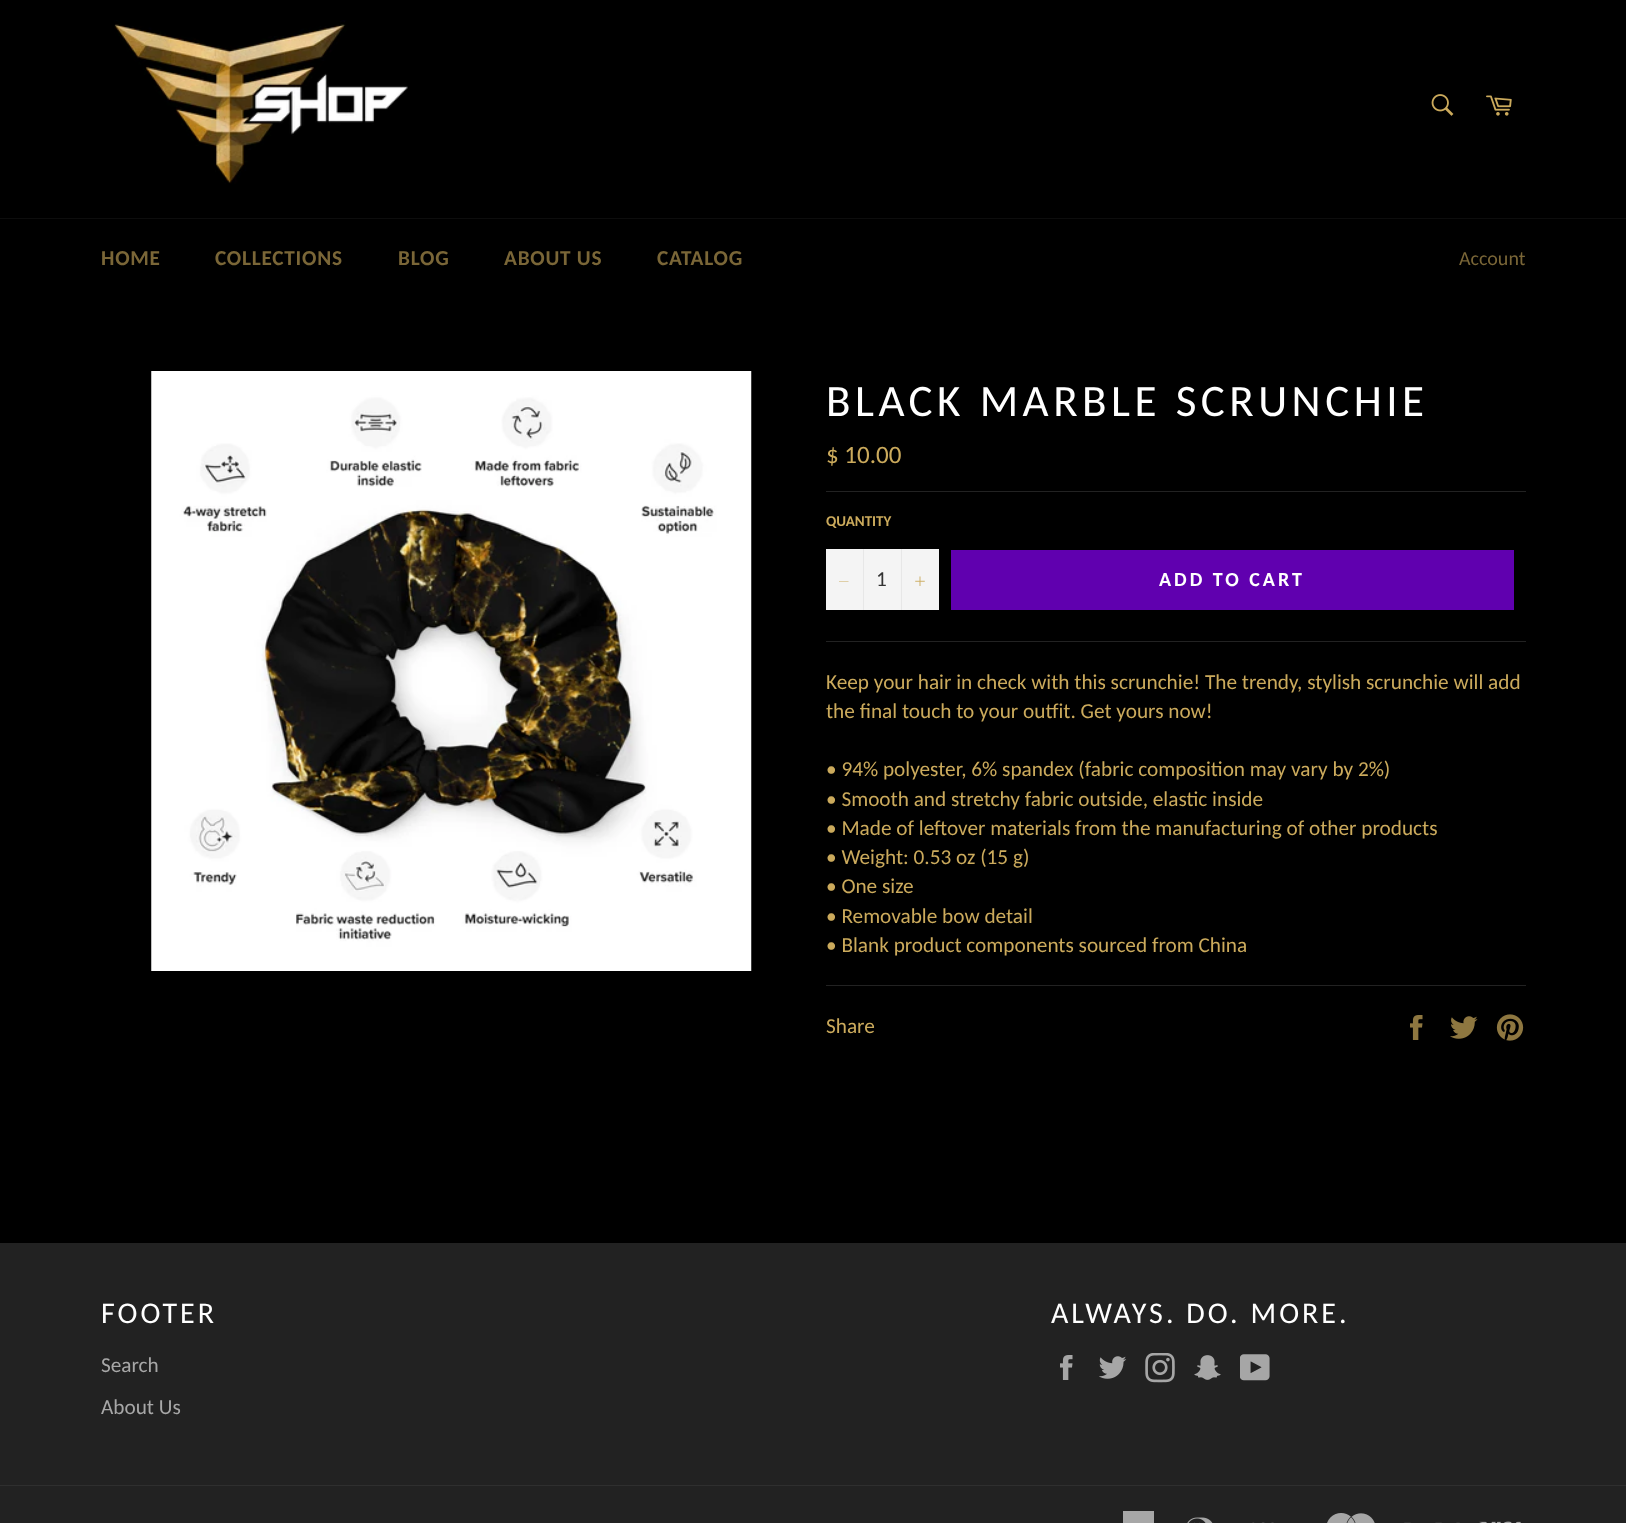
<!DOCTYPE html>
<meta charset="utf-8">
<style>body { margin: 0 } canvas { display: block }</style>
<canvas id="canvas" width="1626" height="1523"></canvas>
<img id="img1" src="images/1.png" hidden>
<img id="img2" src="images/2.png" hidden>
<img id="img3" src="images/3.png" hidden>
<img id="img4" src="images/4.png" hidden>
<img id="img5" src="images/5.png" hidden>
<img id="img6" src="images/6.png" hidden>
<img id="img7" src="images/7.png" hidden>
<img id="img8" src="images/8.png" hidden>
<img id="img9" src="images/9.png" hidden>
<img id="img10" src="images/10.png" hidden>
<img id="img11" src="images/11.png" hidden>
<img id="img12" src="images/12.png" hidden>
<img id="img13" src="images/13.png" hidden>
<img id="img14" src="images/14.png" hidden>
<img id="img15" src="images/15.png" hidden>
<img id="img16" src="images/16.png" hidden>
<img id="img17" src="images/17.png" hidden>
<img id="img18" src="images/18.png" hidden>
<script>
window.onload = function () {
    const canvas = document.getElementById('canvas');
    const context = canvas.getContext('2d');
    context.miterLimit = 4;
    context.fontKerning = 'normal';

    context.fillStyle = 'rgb(0, 0, 0)';
    context.fillRect(0, 0, 1626, 1523);
    context.drawImage(document.getElementById('img1'), 114, 20, 294, 164);
    context.drawImage(document.getElementById('img2'), 1431, 94, 23, 22);
    context.drawImage(document.getElementById('img3'), 1486, 95, 26, 21);
    context.fillStyle = 'rgb(13, 13, 13)';
    context.fillRect(0, 218, 1626, 1);
    context.drawImage(document.getElementById('img4'), 151, 371, 601, 600);
    context.fillStyle = 'rgb(34, 34, 34)';
    context.fillRect(826, 491, 700, 1);
    context.fillStyle = 'rgb(244, 244, 244)';
    context.fillRect(826, 549, 113, 61);
    context.fillStyle = 'rgb(231, 231, 231)';
    context.fillRect(863, 549, 1, 61);
    context.fillStyle = 'rgb(203, 170, 92)';
    context.beginPath();
    context.moveTo(848.5, 581);
    context.lineTo(848.5, 581.5);
    context.lineTo(839, 581.5);
    context.lineTo(839, 581);
    context.closePath();
    context.fill('evenodd');
    context.fillStyle = 'rgb(231, 231, 231)';
    context.fillRect(901, 549, 1, 61);
    context.drawImage(document.getElementById('img5'), 915, 576, 10, 10);
    context.fillStyle = 'rgb(96, 0, 175)';
    context.fillRect(951, 550, 563, 60);
    context.fillStyle = 'rgb(34, 34, 34)';
    context.fillRect(826, 641, 700, 1);
    context.fillRect(826, 985, 700, 1);
    context.drawImage(document.getElementById('img6'), 1410, 1015, 13, 25);
    context.drawImage(document.getElementById('img7'), 1450, 1016, 28, 23);
    context.drawImage(document.getElementById('img8'), 1496, 1014, 28, 27);
    context.fillRect(0, 1243, 1626, 280);
    context.drawImage(document.getElementById('img9'), 1060, 1355, 13, 25);
    context.drawImage(document.getElementById('img10'), 1099, 1356, 28, 23);
    context.drawImage(document.getElementById('img11'), 1145, 1353, 30, 30);
    context.drawImage(document.getElementById('img12'), 1194, 1355, 27, 25);
    context.drawImage(document.getElementById('img13'), 1240, 1354, 30, 27);
    context.fillStyle = 'rgb(47, 47, 47)';
    context.fillRect(0, 1485, 1626, 1);
    context.fillStyle = 'rgb(167, 167, 167)';
    context.fillRect(1123, 1511, 31, 12);
    context.drawImage(document.getElementById('img14'), 1187, 1517, 26, 6);
    context.drawImage(document.getElementById('img15'), 1252, 1522, 22, 1);
    context.drawImage(document.getElementById('img16'), 1327, 1513, 48, 10);
    context.drawImage(document.getElementById('img17'), 1404, 1522, 56, 1);
    context.drawImage(document.getElementById('img18'), 1479, 1521, 42, 2);
    context.letterSpacing = '0.75px';
    context.font = 'bold 21.25px Carlito';
    context.fillStyle = 'rgb(122, 102, 55)';
    context.fillText('HOME', 101, 265);
    context.fillText('COLLECTIONS', 215, 265);
    context.fillText('BLOG', 398, 265);
    context.fillText('ABOUT US', 504, 265);
    context.fillText('CATALOG', 657, 265);
    context.letterSpacing = '0px';
    context.font = '20px Carlito';
    context.fillText('Account', 1459, 265);
    context.letterSpacing = '4.5px';
    context.font = '45px Carlito';
    context.fillStyle = 'rgb(255, 255, 255)';
    context.fillText('BLACK MARBLE SCRUNCHIE', 826, 416);
    context.letterSpacing = '0px';
    context.font = '25px Carlito';
    context.fillStyle = 'rgb(203, 170, 92)';
    context.fillText('$ 10.00', 826, 463);
    context.font = 'bold 15px Carlito';
    context.fillText('QUANTITY', 826, 526);
    context.font = '21.25px Carlito';
    context.fillStyle = 'rgb(51, 51, 51)';
    context.fillText('1', 876, 586);
    context.letterSpacing = '3px';
    context.font = 'bold 20px Carlito';
    context.fillStyle = 'rgb(255, 255, 255)';
    context.fillText('ADD TO CART', 1159, 586);
    context.letterSpacing = '0px';
    context.font = '21.25px Carlito';
    context.fillStyle = 'rgb(203, 170, 92)';
    context.fillText('Keep your hair in check with this scrunchie! The trendy, stylish scrunchie will add', 826, 689);
    context.fillText('the final touch to your outfit. Get yours now!', 826, 718);
    context.fillText('• 94% polyester, 6% spandex (fabric composition may vary by 2%)', 826, 776);
    context.fillText('• Smooth and stretchy fabric outside, elastic inside', 826, 806);
    context.fillText('• Made of leftover materials from the manufacturing of other products', 826, 835);
    context.fillText('• Weight: 0.53 oz (15 g)', 826, 864);
    context.fillText('• One size', 826, 893);
    context.fillText('• Removable bow detail', 826, 923);
    context.fillText('• Blank product components sourced from China', 826, 952);
    context.fillText('Share', 826, 1033);
    context.letterSpacing = '3px';
    context.font = '30px Carlito';
    context.fillStyle = 'rgb(255, 255, 255)';
    context.fillText('FOOTER', 101, 1323);
    context.letterSpacing = '0px';
    context.font = '21.25px Carlito';
    context.fillStyle = 'rgb(167, 167, 167)';
    context.fillText('Search', 101, 1372);
    context.fillText('About Us', 101, 1414);
    context.letterSpacing = '3px';
    context.font = '30px Carlito';
    context.fillStyle = 'rgb(255, 255, 255)';
    context.fillText('ALWAYS. DO. MORE.', 1051, 1323);
};
</script>
